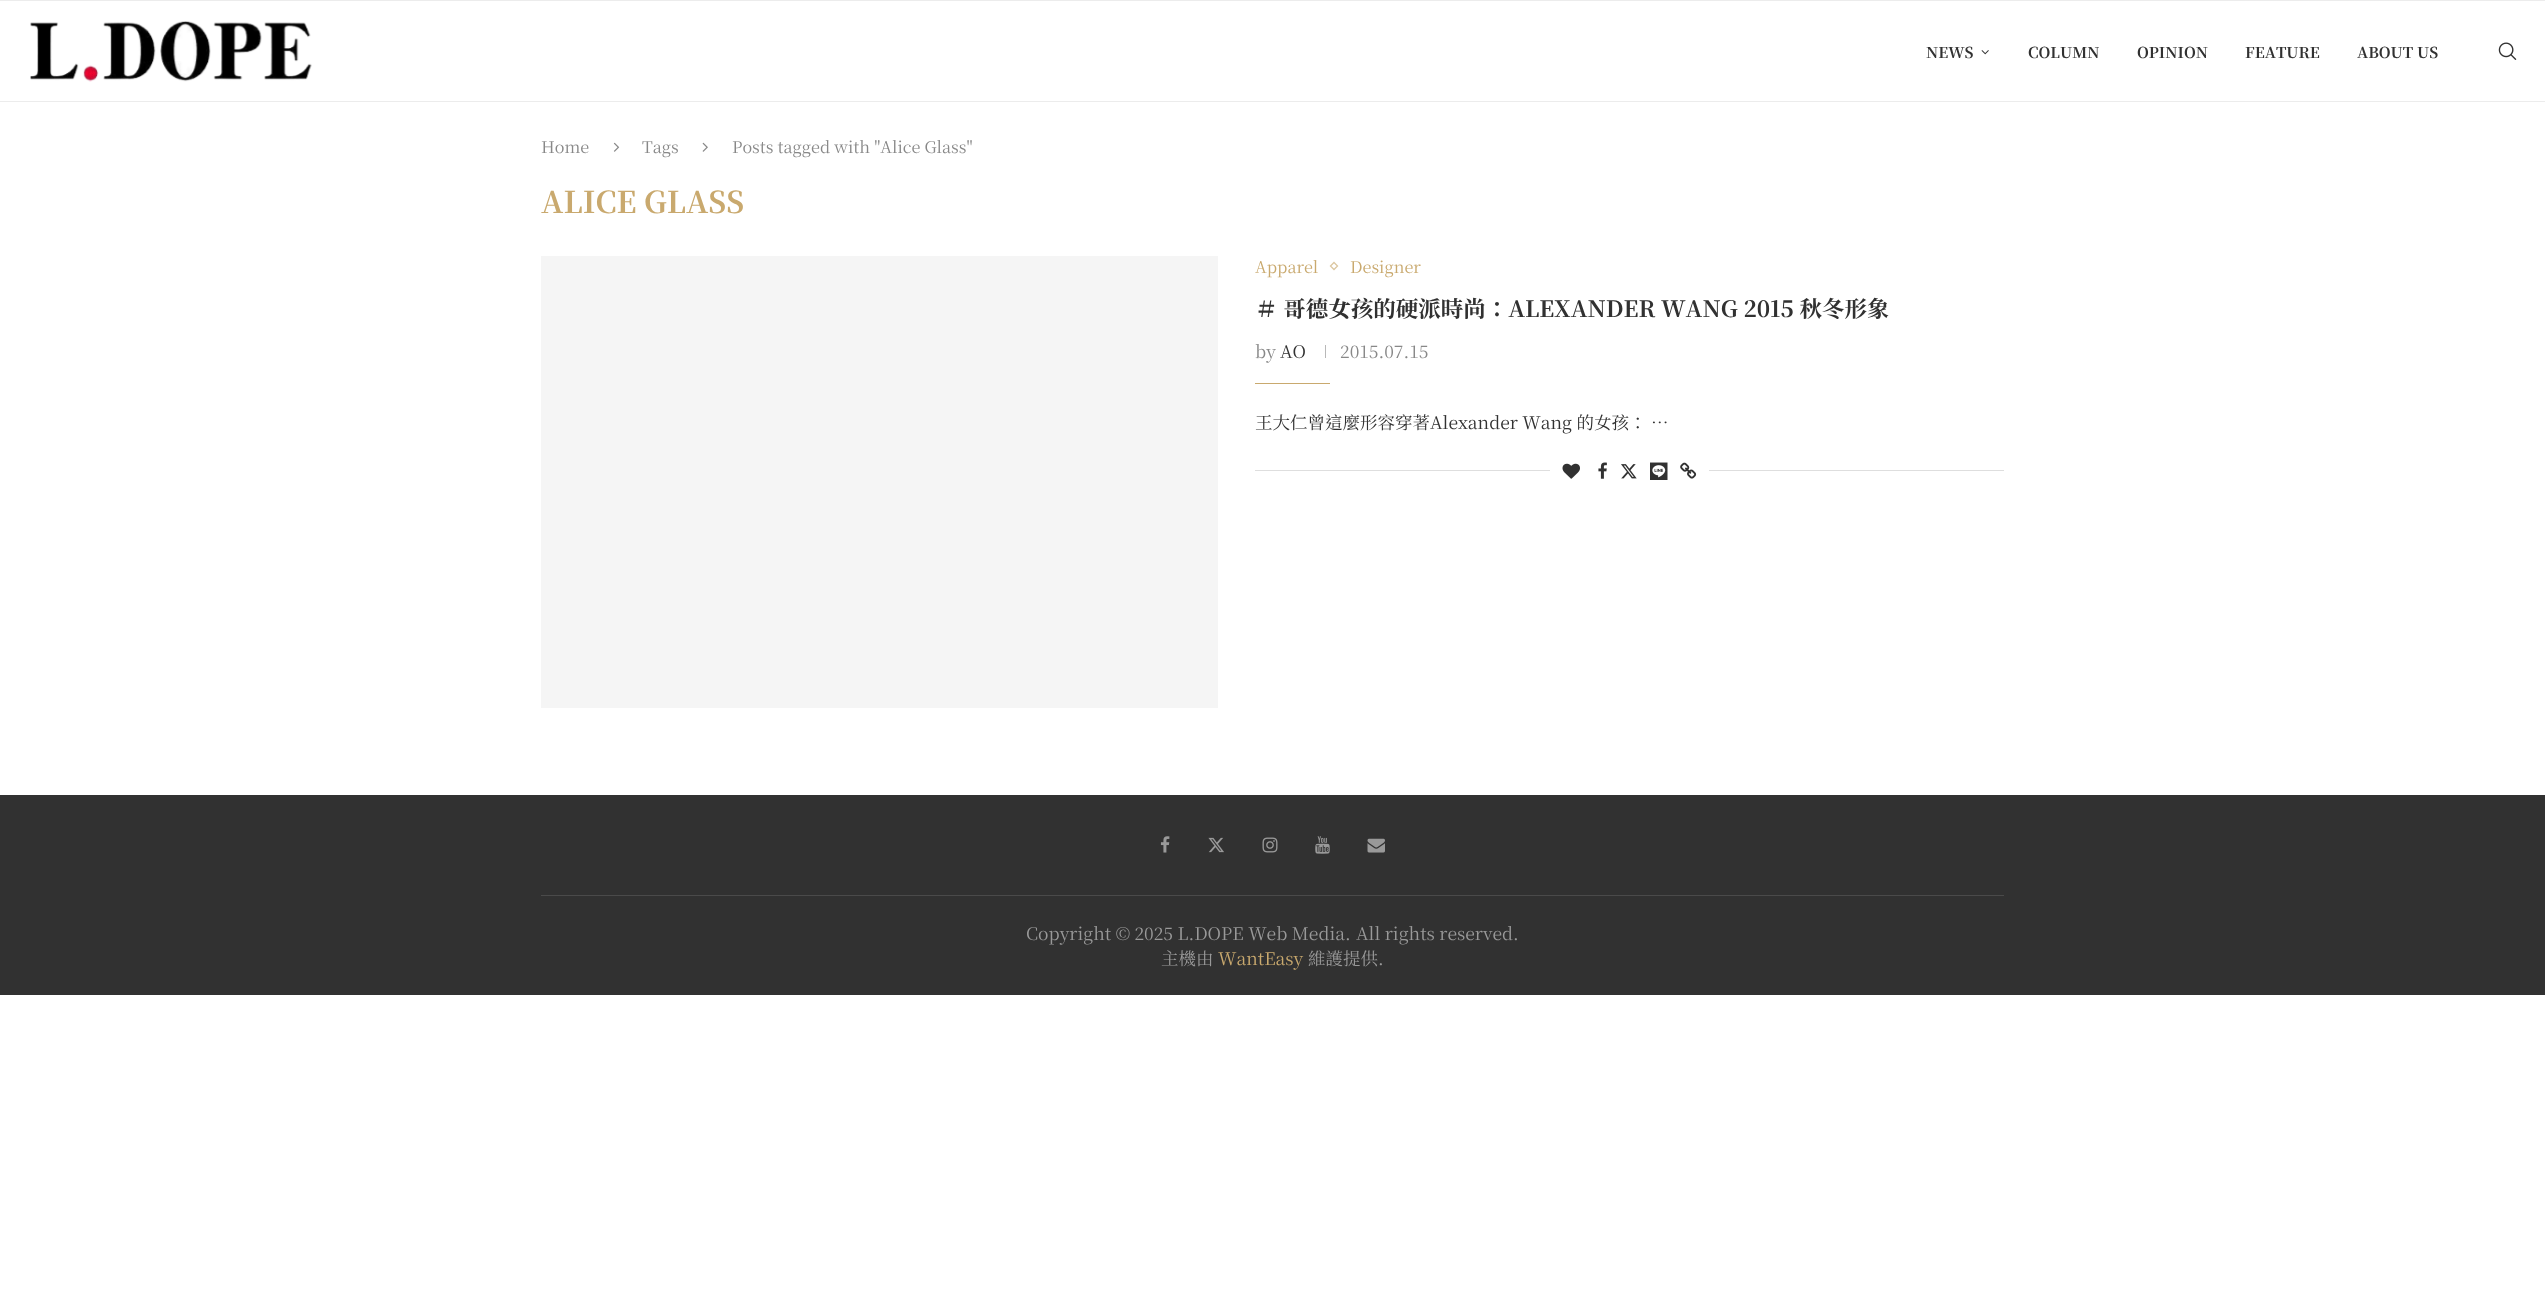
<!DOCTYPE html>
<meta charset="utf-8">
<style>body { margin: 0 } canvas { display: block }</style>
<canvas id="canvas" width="2545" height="1303"></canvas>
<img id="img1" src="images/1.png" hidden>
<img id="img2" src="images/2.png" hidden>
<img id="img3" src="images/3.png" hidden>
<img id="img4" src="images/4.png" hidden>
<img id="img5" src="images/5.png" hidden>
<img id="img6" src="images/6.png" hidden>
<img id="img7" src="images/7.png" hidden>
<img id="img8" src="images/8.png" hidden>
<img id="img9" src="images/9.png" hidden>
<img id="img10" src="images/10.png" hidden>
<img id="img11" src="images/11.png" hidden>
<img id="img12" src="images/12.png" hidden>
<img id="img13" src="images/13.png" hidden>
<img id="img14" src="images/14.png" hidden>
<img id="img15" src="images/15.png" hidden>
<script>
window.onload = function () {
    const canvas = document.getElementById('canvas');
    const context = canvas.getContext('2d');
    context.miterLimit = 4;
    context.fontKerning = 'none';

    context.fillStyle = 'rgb(255, 255, 255)';
    context.fillRect(0, 0, 2545, 1303);
    context.fillStyle = 'rgb(236, 236, 236)';
    context.fillRect(0, 0, 2545, 1);
    context.fillRect(0, 101, 2545, 1);
    context.drawImage(document.getElementById('img1'), 30, 21, 282, 61);
    context.drawImage(document.getElementById('img2'), 1981, 50, 8, 5);
    context.drawImage(document.getElementById('img3'), 2498, 42, 19, 18);
    context.drawImage(document.getElementById('img4'), 613, 142, 7, 10);
    context.drawImage(document.getElementById('img5'), 702, 142, 6, 10);
    context.fillStyle = 'rgb(245, 245, 245)';
    context.fillRect(541, 256, 677, 452);
    context.beginPath();
    context.moveTo(1334, 262.5);
    context.lineTo(1337.5, 266);
    context.lineTo(1334, 269.5);
    context.lineTo(1330.5, 266);
    context.closePath();
    context.strokeStyle = 'rgb(220, 199, 161)';
    context.lineWidth = 1.3;
    context.stroke();
    context.fillStyle = 'rgb(184, 184, 184)';
    context.fillRect(1325, 345, 1, 13);
    context.fillStyle = 'rgb(201, 169, 110)';
    context.fillRect(1255, 383, 75, 1);
    context.fillStyle = 'rgb(222, 222, 222)';
    context.fillRect(1255, 470, 749, 1);
    context.fillStyle = 'rgb(255, 255, 255)';
    context.fillRect(1550, 470, 159, 1);
    context.drawImage(document.getElementById('img6'), 1562, 463, 18, 16);
    context.drawImage(document.getElementById('img7'), 1598, 462, 9, 17);
    context.drawImage(document.getElementById('img8'), 1621, 464, 16, 15);
    context.drawImage(document.getElementById('img9'), 1650, 462, 18, 18);
    context.drawImage(document.getElementById('img10'), 1680, 462, 17, 17);
    context.fillStyle = 'rgb(49, 49, 49)';
    context.fillRect(0, 795, 2545, 200);
    context.fillStyle = 'rgb(74, 74, 74)';
    context.fillRect(541, 895, 1463, 1);
    context.drawImage(document.getElementById('img11'), 1160, 836, 10, 17);
    context.drawImage(document.getElementById('img12'), 1208, 837, 16, 16);
    context.drawImage(document.getElementById('img13'), 1262, 837, 16, 16);
    context.drawImage(document.getElementById('img14'), 1315, 836, 15, 18);
    context.drawImage(document.getElementById('img15'), 1367, 838, 18, 15);
    context.font = 'bold 15px Noto Serif TC';
    context.fillStyle = 'rgb(49, 49, 49)';
    context.fillText('NEWS', 1926, 58);
    context.fillText('COLUMN', 2028, 58);
    context.fillText('OPINION', 2137, 58);
    context.fillText('FEATURE', 2245, 58);
    context.fillText('ABOUT US', 2357, 58);
    context.font = '16.25px Noto Serif TC';
    context.fillStyle = 'rgb(136, 136, 136)';
    context.fillText('Home', 541, 153);
    context.fillText('Tags', 642, 153);
    context.fillText('Posts tagged with "Alice Glass"', 732, 153);
    context.font = 'bold 30px Noto Serif TC';
    context.fillStyle = 'rgb(201, 169, 110)';
    context.fillText('ALICE GLASS', 541, 213);
    context.font = '16.25px Noto Serif TC';
    context.fillText('Apparel', 1255, 273);
    context.fillText('Designer', 1350, 273);
    context.font = 'bold 22.5px Noto Serif TC';
    context.fillStyle = 'rgb(49, 49, 49)';
    context.fillText('＃ 哥德女孩的硬派時尚：ALEXANDER WANG 2015 秋冬形象', 1255, 317);
    context.font = '17.5px Noto Serif TC';
    context.fillStyle = 'rgb(136, 136, 136)';
    context.fillText('by', 1255, 358);
    context.fillStyle = 'rgb(49, 49, 49)';
    context.fillText('AO', 1280, 358);
    context.fillStyle = 'rgb(136, 136, 136)';
    context.fillText('2015.07.15', 1340, 358);
    context.fillStyle = 'rgb(49, 49, 49)';
    context.fillText('王大仁曾這麼形容穿著Alexander Wang 的女孩： …', 1255, 429);
    context.fillStyle = 'rgb(153, 153, 153)';
    context.fillText('Copyright © 2025 L.DOPE Web Media.', 1026, 940);
    context.fillText('All rights reserved.', 1356, 940);
    context.fillText('主機由', 1161, 965);
    context.fillStyle = 'rgb(201, 169, 110)';
    context.fillText('WantEasy', 1218, 965);
    context.fillStyle = 'rgb(153, 153, 153)';
    context.fillText('維護提供.', 1308, 965);
};
</script>
